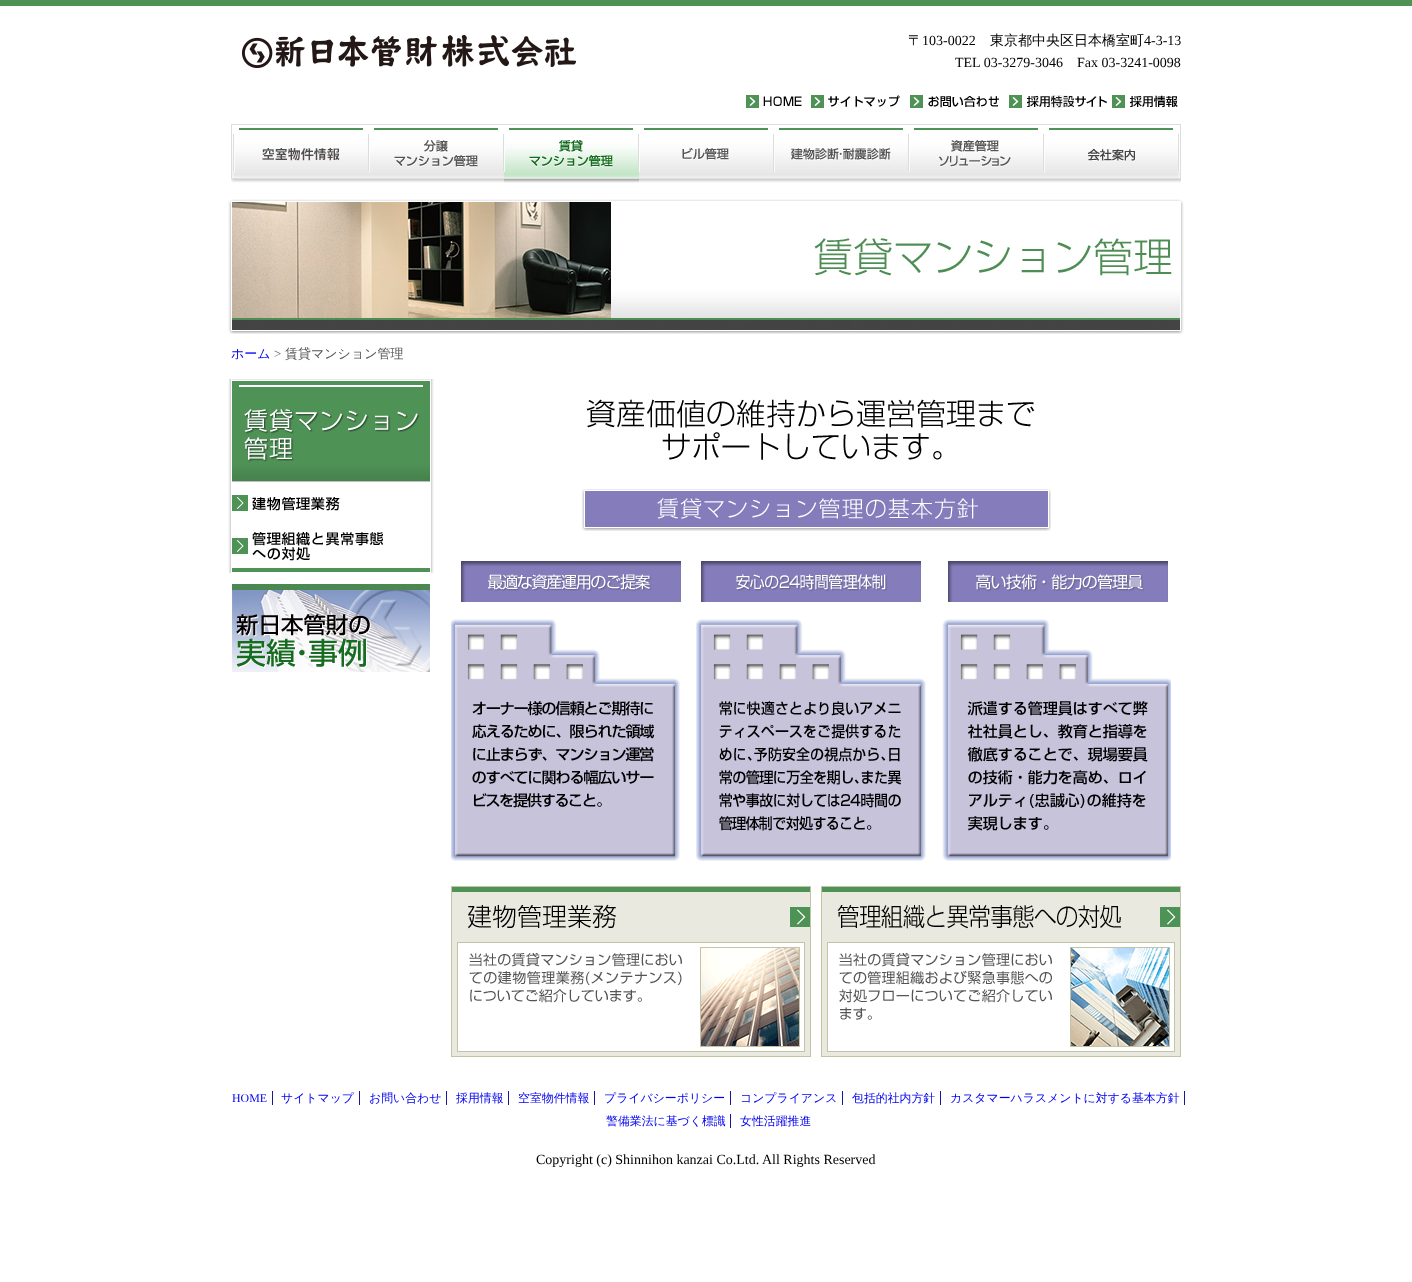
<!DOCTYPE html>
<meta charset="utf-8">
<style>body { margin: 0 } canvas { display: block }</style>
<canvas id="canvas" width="1412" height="1282"></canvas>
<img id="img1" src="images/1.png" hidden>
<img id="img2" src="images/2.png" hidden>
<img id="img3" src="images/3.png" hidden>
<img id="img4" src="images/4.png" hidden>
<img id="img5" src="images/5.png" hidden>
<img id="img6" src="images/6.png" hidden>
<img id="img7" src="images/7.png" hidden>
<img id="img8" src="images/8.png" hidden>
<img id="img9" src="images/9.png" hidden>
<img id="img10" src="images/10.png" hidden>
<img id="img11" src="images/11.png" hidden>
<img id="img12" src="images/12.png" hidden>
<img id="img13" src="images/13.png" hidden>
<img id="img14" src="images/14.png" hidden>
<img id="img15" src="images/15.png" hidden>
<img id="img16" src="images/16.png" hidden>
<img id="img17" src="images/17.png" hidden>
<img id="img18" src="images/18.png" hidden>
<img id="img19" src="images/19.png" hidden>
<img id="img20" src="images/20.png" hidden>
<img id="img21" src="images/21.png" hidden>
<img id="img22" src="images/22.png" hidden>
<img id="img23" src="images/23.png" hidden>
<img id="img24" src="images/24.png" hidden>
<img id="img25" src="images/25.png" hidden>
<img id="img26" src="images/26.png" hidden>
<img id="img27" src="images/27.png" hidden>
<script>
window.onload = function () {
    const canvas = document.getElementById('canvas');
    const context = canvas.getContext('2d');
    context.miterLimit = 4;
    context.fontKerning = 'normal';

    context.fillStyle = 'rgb(255, 255, 255)';
    context.fillRect(0, 0, 1412, 1282);
    context.fillStyle = 'rgb(79, 146, 86)';
    context.fillRect(0, 0, 1412, 6);
    context.drawImage(document.getElementById('img1'), 242, 35, 334, 33);
    context.drawImage(document.getElementById('img2'), 746, 95, 56, 13);
    context.drawImage(document.getElementById('img3'), 811, 95, 89, 13);
    context.drawImage(document.getElementById('img4'), 910, 95, 89, 13);
    context.drawImage(document.getElementById('img5'), 1009, 95, 98, 13);
    context.drawImage(document.getElementById('img6'), 1112, 95, 66, 13);
    context.drawImage(document.getElementById('img7'), 231, 124, 950, 59);
    context.drawImage(document.getElementById('img8'), 231, 147, 138, 36);
    context.drawImage(document.getElementById('img9'), 369, 140, 135, 43);
    context.drawImage(document.getElementById('img10'), 639, 147, 135, 36);
    context.drawImage(document.getElementById('img11'), 774, 147, 135, 36);
    context.drawImage(document.getElementById('img12'), 909, 140, 135, 43);
    context.drawImage(document.getElementById('img13'), 1044, 147, 137, 36);
    context.drawImage(document.getElementById('img14'), 228, 199, 956, 135);
    context.drawImage(document.getElementById('img15'), 228, 379, 206, 194);
    context.drawImage(document.getElementById('img16'), 231, 379, 200, 103);
    context.drawImage(document.getElementById('img17'), 232, 482, 198, 43);
    context.drawImage(document.getElementById('img18'), 232, 525, 198, 43);
    context.drawImage(document.getElementById('img19'), 232, 584, 198, 88);
    context.drawImage(document.getElementById('img20'), 586, 399, 449, 61);
    context.drawImage(document.getElementById('img21'), 581, 489, 470, 42);
    context.drawImage(document.getElementById('img22'), 451, 561, 230, 300);
    context.drawImage(document.getElementById('img23'), 696, 561, 230, 300);
    context.drawImage(document.getElementById('img24'), 942, 561, 229, 300);
    context.drawImage(document.getElementById('img25'), 451, 886, 730, 171);
    context.drawImage(document.getElementById('img26'), 452, 887, 358, 169);
    context.drawImage(document.getElementById('img27'), 822, 887, 358, 169);
    context.fillStyle = 'rgb(25, 25, 151)';
    context.fillRect(272, 1091, 1, 14);
    context.fillRect(359, 1091, 1, 14);
    context.fillRect(446, 1091, 1, 14);
    context.fillRect(508, 1091, 1, 14);
    context.fillRect(594, 1091, 1, 14);
    context.fillRect(730, 1091, 1, 14);
    context.fillRect(842, 1091, 1, 14);
    context.fillRect(940, 1091, 1, 14);
    context.fillRect(1184, 1091, 1, 14);
    context.fillRect(730, 1114, 1, 14);
    context.font = '500 14px WenQuanYi Zen Hei';
    context.fillStyle = 'rgb(0, 0, 0)';
    context.fillText('〒', 908, 45);
    context.font = '14px Liberation Serif';
    context.fillText('103-0022', 922, 45);
    context.font = '500 14px WenQuanYi Zen Hei';
    context.fillText('東京都中央区日本橋室町', 990, 45);
    context.font = '14px Liberation Serif';
    context.fillText('4-3-13', 1144, 45);
    context.fillText('TEL 03-3279-3046', 955, 67);
    context.fillText('Fax 03-3241-0098', 1077, 67);
    context.font = '500 13px WenQuanYi Zen Hei';
    context.fillStyle = 'rgb(0, 0, 238)';
    context.fillText('ホーム', 231, 358);
    context.font = '13px Liberation Serif';
    context.fillStyle = 'rgb(85, 85, 85)';
    context.fillText('>', 274, 358);
    context.font = '500 13px WenQuanYi Zen Hei';
    context.fillText('賃貸マンション管理', 285, 358);
    context.font = '11.9px Liberation Serif';
    context.fillStyle = 'rgb(0, 0, 238)';
    context.fillText('HOME', 232, 1102);
    context.font = '500 11.9px WenQuanYi Zen Hei';
    context.fillText('サイトマップ', 281, 1102);
    context.fillText('お問い合わせ', 369, 1102);
    context.fillText('採用情報', 456, 1102);
    context.fillText('空室物件情報', 518, 1102);
    context.fillText('プライバシーポリシー', 604, 1102);
    context.fillText('コンプライアンス', 740, 1102);
    context.fillText('包括的社内方針', 852, 1102);
    context.fillText('カスタマーハラスメントに対する基本方針', 950, 1102);
    context.fillText('警備業法に基づく標識', 606, 1125);
    context.fillText('女性活躍推進', 740, 1125);
    context.font = '14px Liberation Serif';
    context.fillStyle = 'rgb(0, 0, 0)';
    context.fillText('Copyright (c) Shinnihon kanzai Co.Ltd. All Rights Reserved', 536, 1164);
};
</script>
